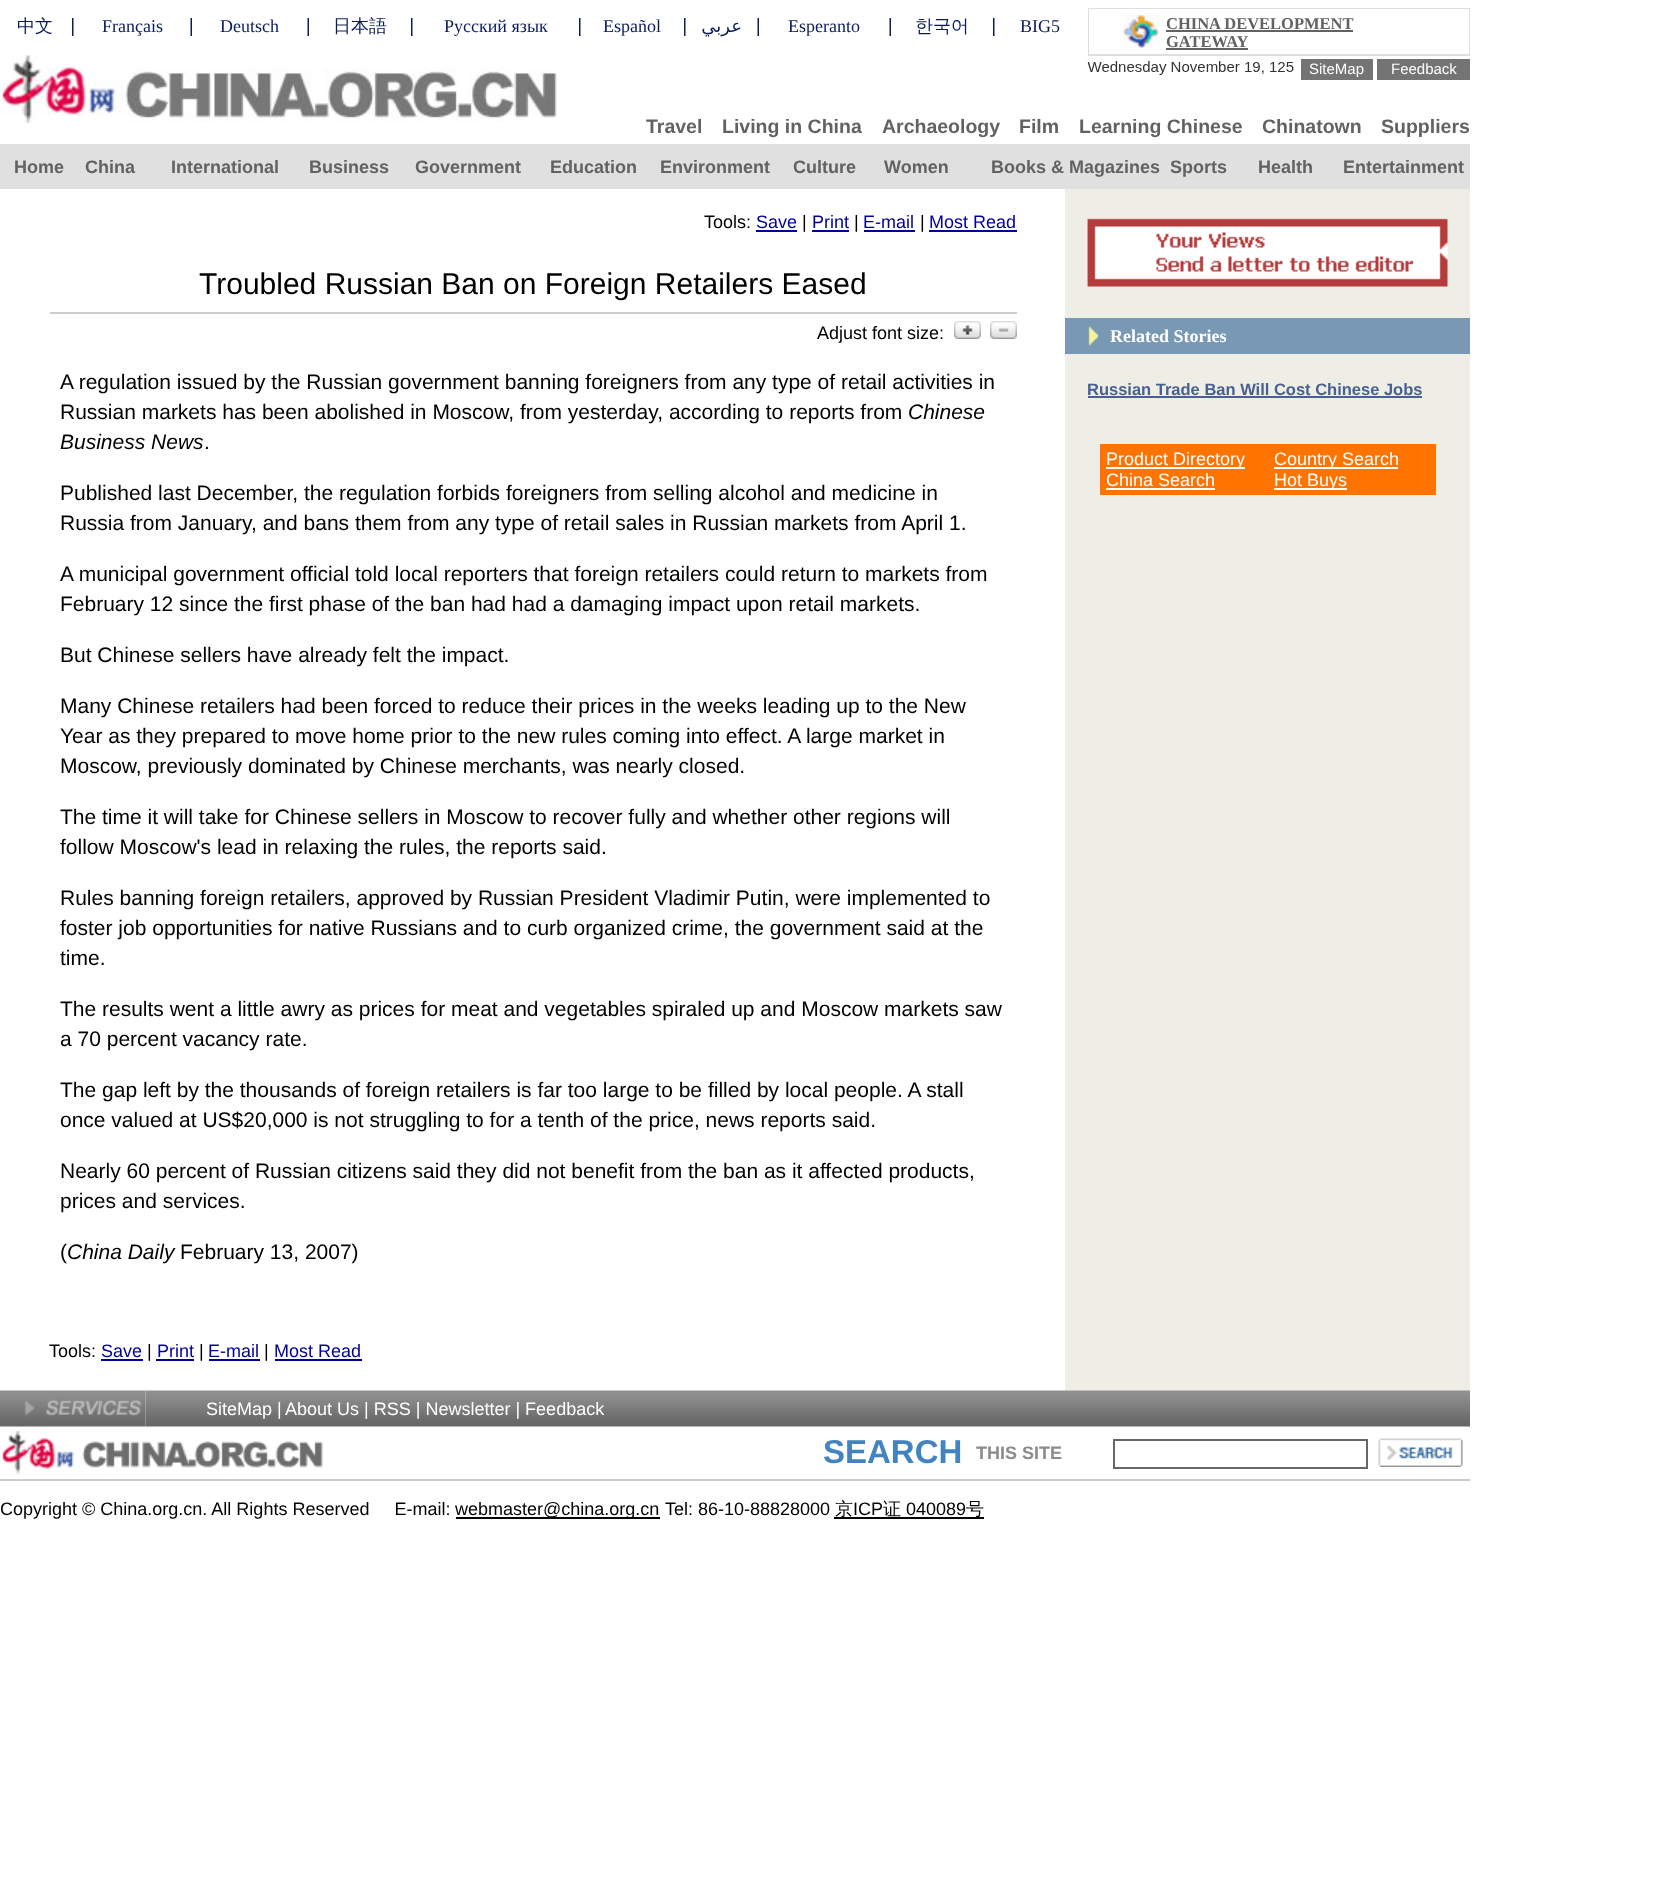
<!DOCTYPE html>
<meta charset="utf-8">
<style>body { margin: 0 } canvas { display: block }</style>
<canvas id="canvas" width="1670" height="1896"></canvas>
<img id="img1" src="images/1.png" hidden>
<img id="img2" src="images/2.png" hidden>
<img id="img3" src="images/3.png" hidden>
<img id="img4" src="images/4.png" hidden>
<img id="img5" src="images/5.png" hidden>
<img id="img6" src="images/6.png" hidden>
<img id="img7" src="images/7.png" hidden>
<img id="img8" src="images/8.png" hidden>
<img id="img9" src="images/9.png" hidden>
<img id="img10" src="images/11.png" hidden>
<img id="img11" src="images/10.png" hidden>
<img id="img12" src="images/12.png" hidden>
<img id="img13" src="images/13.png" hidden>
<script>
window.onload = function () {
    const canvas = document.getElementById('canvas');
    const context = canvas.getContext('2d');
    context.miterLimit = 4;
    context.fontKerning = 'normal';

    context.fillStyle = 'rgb(255, 255, 255)';
    context.fillRect(0, 0, 1670, 1896);
    context.drawImage(document.getElementById('img1'), 72, 18, 2, 18);
    context.drawImage(document.getElementById('img2'), 190, 18, 2, 18);
    context.drawImage(document.getElementById('img2'), 307, 18, 2, 18);
    context.drawImage(document.getElementById('img1'), 411, 18, 2, 18);
    context.drawImage(document.getElementById('img1'), 579, 18, 2, 18);
    context.drawImage(document.getElementById('img1'), 684, 18, 2, 18);
    context.drawImage(document.getElementById('img2'), 757, 18, 2, 18);
    context.drawImage(document.getElementById('img2'), 889, 18, 2, 18);
    context.drawImage(document.getElementById('img1'), 993, 18, 2, 18);
    context.fillStyle = 'rgb(222, 222, 222)';
    context.fillRect(1088, 8, 382, 48);
    context.fillStyle = 'rgb(255, 255, 255)';
    context.fillRect(1089, 9, 380, 45);
    context.drawImage(document.getElementById('img3'), 1123, 15, 37, 33);
    context.fillStyle = 'rgb(98, 98, 98)';
    context.fillRect(1166, 30, 187, 2);
    context.fillRect(1166, 48, 82, 2);
    context.drawImage(document.getElementById('img4'), 0, 55, 557, 68);
    context.drawImage(document.getElementById('img5'), 1087, 61, 207, 14);
    context.fillStyle = 'rgb(116, 116, 116)';
    context.fillRect(1301, 59, 72, 21);
    context.fillRect(1377, 59, 93, 21);
    context.fillStyle = 'rgb(224, 224, 224)';
    context.fillRect(0, 144, 1470, 45);
    context.fillStyle = 'rgb(0, 0, 153)';
    context.fillRect(756, 230, 41, 2);
    context.fillRect(812, 230, 37, 2);
    context.fillRect(864, 230, 51, 2);
    context.fillRect(929, 230, 88, 2);
    context.fillStyle = 'rgb(204, 204, 204)';
    context.fillRect(50, 312, 967, 2);
    context.drawImage(document.getElementById('img6'), 954, 321, 27, 18);
    context.drawImage(document.getElementById('img7'), 990, 321, 27, 18);
    context.fillStyle = 'rgb(0, 0, 153)';
    context.fillRect(101, 1359, 42, 2);
    context.fillRect(156, 1359, 38, 2);
    context.fillRect(209, 1359, 51, 2);
    context.fillRect(275, 1359, 87, 2);
    context.fillStyle = 'rgb(238, 238, 230)';
    context.fillRect(1065, 189, 405, 1202);
    context.drawImage(document.getElementById('img8'), 1087, 218, 361, 69);
    context.drawImage(document.getElementById('img9'), 1065, 318, 405, 36);
    context.fillStyle = 'rgb(74, 96, 145)';
    context.fillRect(1088, 396, 334, 2);
    context.fillStyle = 'rgb(255, 115, 0)';
    context.fillRect(1100, 444, 336, 51);
    context.fillStyle = 'rgb(255, 255, 255)';
    context.fillRect(1106, 467, 139, 2);
    context.fillRect(1106, 488, 109, 2);
    context.fillRect(1274, 467, 124, 2);
    context.fillRect(1274, 488, 73, 2);
    context.drawImage(document.getElementById('img10'), 145, 1390, 1325, 37);
    context.drawImage(document.getElementById('img11'), 0, 1390, 146, 37);
    context.drawImage(document.getElementById('img12'), 2, 1431, 321, 44);
    context.strokeStyle = 'rgb(103, 103, 103)';
    context.lineWidth = 2;
    context.strokeRect(1114, 1440, 253, 28);
    context.fillStyle = 'rgb(239, 239, 239)';
    context.fillRect(1462, 1439, 1, 28);
    context.drawImage(document.getElementById('img13'), 1378, 1438, 85, 29);
    context.fillStyle = 'rgb(204, 204, 206)';
    context.fillRect(0, 1479, 1470, 2);
    context.fillStyle = 'rgb(0, 0, 0)';
    context.fillRect(456, 1517, 204, 2);
    context.fillRect(834, 1517, 150, 2);
    context.font = '500 18px WenQuanYi Zen Hei';
    context.fillStyle = 'rgb(11, 29, 89)';
    context.fillText('中文', 17, 32);
    context.font = '18px Liberation Serif';
    context.fillText('Français', 102, 32);
    context.fillText('Deutsch', 220, 32);
    context.font = '500 18px WenQuanYi Zen Hei';
    context.fillText('日本語', 333, 32);
    context.font = '18px Liberation Serif';
    context.fillText('Русский язык', 444, 32);
    context.fillText('Español', 603, 32);
    context.direction = 'rtl';
    context.font = '18px DejaVu Sans';
    context.fillText('عربي', 742, 32);
    context.direction = 'ltr';
    context.font = '18px Liberation Serif';
    context.fillText('Esperanto', 788, 32);
    context.font = '500 18px WenQuanYi Zen Hei';
    context.fillText('한국어', 915, 32);
    context.font = '18px Liberation Serif';
    context.fillText('BIG5', 1020, 32);
    context.font = 'bold 16.5px Liberation Serif';
    context.fillStyle = 'rgb(98, 98, 98)';
    context.fillText('CHINA DEVELOPMENT', 1166, 29);
    context.fillText('GATEWAY', 1166, 47);
    context.font = '15px Liberation Sans';
    context.fillStyle = 'rgb(255, 255, 255)';
    context.fillText('SiteMap', 1309, 74);
    context.fillText('Feedback', 1391, 74);
    context.font = 'bold 19.5px Liberation Sans';
    context.fillStyle = 'rgb(98, 98, 98)';
    context.fillText('Travel', 646, 133);
    context.fillText('Living in China', 722, 133);
    context.fillText('Archaeology', 882, 133);
    context.fillText('Film', 1019, 133);
    context.fillText('Learning Chinese', 1079, 133);
    context.fillText('Chinatown', 1262, 133);
    context.fillText('Suppliers', 1381, 133);
    context.font = 'bold 18px Liberation Sans';
    context.fillText('Home', 14, 173);
    context.fillText('China', 85, 173);
    context.fillText('International', 171, 173);
    context.fillText('Business', 309, 173);
    context.fillText('Government', 415, 173);
    context.fillText('Education', 550, 173);
    context.fillText('Environment', 660, 173);
    context.fillText('Culture', 793, 173);
    context.fillText('Women', 884, 173);
    context.fillText('Books & Magazines', 991, 173);
    context.fillText('Sports', 1170, 173);
    context.fillText('Health', 1258, 173);
    context.fillText('Entertainment', 1343, 173);
    context.font = '18px Liberation Sans';
    context.fillStyle = 'rgb(0, 0, 0)';
    context.fillText('Tools:', 704, 228);
    context.fillStyle = 'rgb(0, 0, 153)';
    context.fillText('Save', 756, 228);
    context.fillStyle = 'rgb(0, 0, 0)';
    context.fillText('|', 802, 228);
    context.fillStyle = 'rgb(0, 0, 153)';
    context.fillText('Print', 812, 228);
    context.fillStyle = 'rgb(0, 0, 0)';
    context.fillText('|', 854, 228);
    context.fillStyle = 'rgb(0, 0, 153)';
    context.fillText('E-mail', 863, 228);
    context.fillStyle = 'rgb(0, 0, 0)';
    context.fillText('|', 920, 228);
    context.fillStyle = 'rgb(0, 0, 153)';
    context.fillText('Most Read', 929, 228);
    context.font = '30px Liberation Sans';
    context.fillStyle = 'rgb(0, 0, 0)';
    context.fillText('Troubled Russian Ban on Foreign Retailers Eased', 199, 294);
    context.font = '18px Liberation Sans';
    context.fillText('Adjust font size:', 817, 339);
    context.font = '21px Liberation Sans';
    context.fillText('A regulation issued by the Russian government banning foreigners from any type of retail activities in', 60, 389);
    context.fillText('Russian markets has been abolished in Moscow, from yesterday, according to reports from', 60, 419);
    context.font = 'italic 21px Liberation Sans';
    context.fillText('Chinese', 908, 419);
    context.fillText('Business News', 60, 449);
    context.font = '21px Liberation Sans';
    context.fillText('.', 204, 449);
    context.fillText('Published last December, the regulation forbids foreigners from selling alcohol and medicine in', 60, 500);
    context.fillText('Russia from January, and bans them from any type of retail sales in Russian markets from April 1.', 60, 530);
    context.fillText('A municipal government official told local reporters that foreign retailers could return to markets from', 60, 581);
    context.fillText('February 12 since the first phase of the ban had had a damaging impact upon retail markets.', 60, 611);
    context.fillText('But Chinese sellers have already felt the impact.', 60, 662);
    context.fillText('Many Chinese retailers had been forced to reduce their prices in the weeks leading up to the New', 60, 713);
    context.fillText('Year as they prepared to move home prior to the new rules coming into effect. A large market in', 60, 743);
    context.fillText('Moscow, previously dominated by Chinese merchants, was nearly closed.', 60, 773);
    context.fillText('The time it will take for Chinese sellers in Moscow to recover fully and whether other regions will', 60, 824);
    context.fillText('follow Moscow\'s lead in relaxing the rules, the reports said.', 60, 854);
    context.fillText('Rules banning foreign retailers, approved by Russian President Vladimir Putin, were implemented to', 60, 905);
    context.fillText('foster job opportunities for native Russians and to curb organized crime, the government said at the', 60, 935);
    context.fillText('time.', 60, 965);
    context.fillText('The results went a little awry as prices for meat and vegetables spiraled up and Moscow markets saw', 60, 1016);
    context.fillText('a 70 percent vacancy rate.', 60, 1046);
    context.fillText('The gap left by the thousands of foreign retailers is far too large to be filled by local people. A stall', 60, 1097);
    context.fillText('once valued at US$20,000 is not struggling to for a tenth of the price, news reports said.', 60, 1127);
    context.fillText('Nearly 60 percent of Russian citizens said they did not benefit from the ban as it affected products,', 60, 1178);
    context.fillText('prices and services.', 60, 1208);
    context.fillText('(', 60, 1259);
    context.font = 'italic 21px Liberation Sans';
    context.fillText('China Daily', 67, 1259);
    context.font = '21px Liberation Sans';
    context.fillText('February 13, 2007)', 180, 1259);
    context.font = '18px Liberation Sans';
    context.fillText('Tools:', 49, 1357);
    context.fillStyle = 'rgb(0, 0, 153)';
    context.fillText('Save', 101, 1357);
    context.fillStyle = 'rgb(0, 0, 0)';
    context.fillText('|', 147, 1357);
    context.fillStyle = 'rgb(0, 0, 153)';
    context.fillText('Print', 157, 1357);
    context.fillStyle = 'rgb(0, 0, 0)';
    context.fillText('|', 199, 1357);
    context.fillStyle = 'rgb(0, 0, 153)';
    context.fillText('E-mail', 208, 1357);
    context.fillStyle = 'rgb(0, 0, 0)';
    context.fillText('|', 264, 1357);
    context.fillStyle = 'rgb(0, 0, 153)';
    context.fillText('Most Read', 274, 1357);
    context.font = 'bold 18px Liberation Serif';
    context.fillStyle = 'rgb(255, 255, 255)';
    context.fillText('Related Stories', 1110, 342);
    context.font = 'bold 16.5px Liberation Sans';
    context.fillStyle = 'rgb(74, 96, 145)';
    context.fillText('Russian Trade Ban Will Cost Chinese Jobs', 1087, 395);
    context.font = '18px Liberation Sans';
    context.fillStyle = 'rgb(255, 255, 255)';
    context.fillText('Product Directory', 1106, 465);
    context.fillText('China Search', 1106, 486);
    context.fillText('Country Search', 1274, 465);
    context.fillText('Hot Buys', 1274, 486);
    context.fillText('SiteMap |', 206, 1415);
    context.fillText('About Us | RSS | Newsletter | Feedback', 285, 1415);
    context.font = 'bold 33px Liberation Sans';
    context.fillStyle = 'rgb(67, 131, 192)';
    context.fillText('SEARCH', 823, 1463);
    context.font = 'bold 18px Liberation Sans';
    context.fillStyle = 'rgb(139, 139, 139)';
    context.fillText('THIS SITE', 976, 1459);
    context.font = '18px Liberation Sans';
    context.fillStyle = 'rgb(0, 0, 0)';
    context.fillText('Copyright © China.org.cn. All Rights Reserved     E-mail:', 0, 1515);
    context.fillText('webmaster@china.org.cn', 455, 1515);
    context.fillText('Tel: 86-10-88828000', 665, 1515);
    context.font = '500 18px WenQuanYi Zen Hei';
    context.fillText('京', 835, 1515);
    context.font = '18px Liberation Sans';
    context.fillText('ICP', 853, 1515);
    context.font = '500 18px WenQuanYi Zen Hei';
    context.fillText('证', 883, 1515);
    context.font = '18px Liberation Sans';
    context.fillText('040089', 906, 1515);
    context.font = '500 18px WenQuanYi Zen Hei';
    context.fillText('号', 966, 1515);
};
</script>
